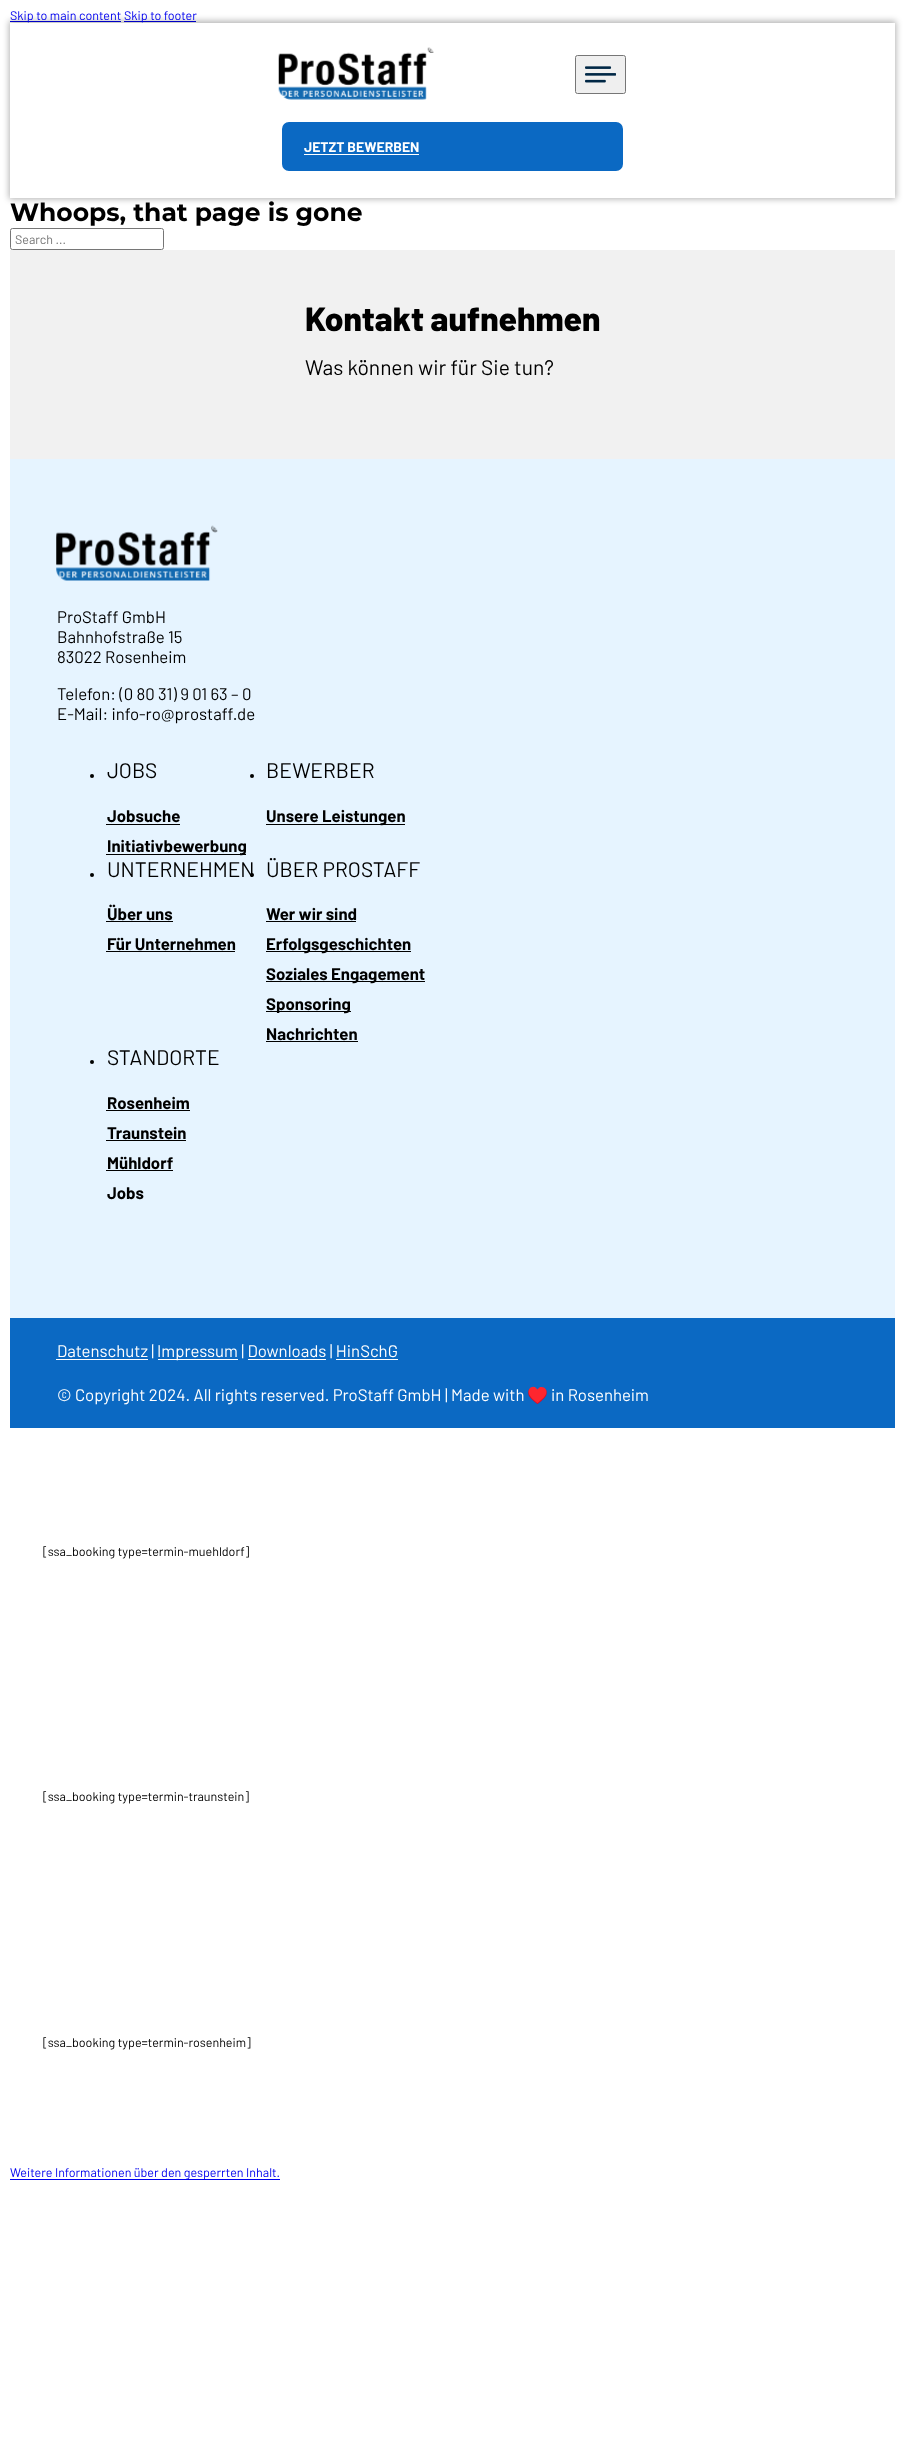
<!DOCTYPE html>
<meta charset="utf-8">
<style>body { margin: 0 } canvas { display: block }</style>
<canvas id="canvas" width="904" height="2464"></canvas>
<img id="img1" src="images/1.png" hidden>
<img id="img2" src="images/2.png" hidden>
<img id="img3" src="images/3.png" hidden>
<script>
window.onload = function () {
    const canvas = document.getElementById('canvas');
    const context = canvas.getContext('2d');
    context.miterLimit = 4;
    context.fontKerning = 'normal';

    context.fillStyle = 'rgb(255, 255, 255)';
    context.fillRect(0, 0, 904, 2464);
    context.fillStyle = 'rgb(0, 0, 238)';
    context.fillRect(10, 21, 111, 1);
    context.fillRect(124, 21, 72, 1);
    context.fillStyle = 'rgba(0, 0, 0, 0.3)';
    context.filter = 'blur(3px)';
    context.beginPath();
    context.rect(9, 21, 887, 178);
    context.fill();
    context.filter = 'none';
    context.fillStyle = 'rgb(255, 255, 255)';
    context.fillRect(10, 23, 885, 175);
    context.drawImage(document.getElementById('img1'), 278, 47, 156, 53);
    context.fillStyle = 'rgb(239, 239, 239)';
    context.beginPath();
    context.roundRect(575.5, 55.5, 50, 38, 2);
    context.fill();
    context.strokeStyle = 'rgb(118, 118, 118)';
    context.stroke();
    context.drawImage(document.getElementById('img2'), 585, 66, 31, 17);
    context.fillStyle = 'rgb(11, 105, 195)';
    context.beginPath();
    context.roundRect(280.5, 120.5, 344, 52, 8.5);
    context.fill();
    context.strokeStyle = 'rgb(255, 255, 255)';
    context.lineWidth = 3;
    context.stroke();
    context.fillStyle = 'rgb(255, 255, 255)';
    context.fillRect(304, 154, 115, 1);
    context.beginPath();
    context.roundRect(10.5, 228.5, 153, 21, 2);
    context.strokeStyle = 'rgb(118, 118, 118)';
    context.lineWidth = 1;
    context.stroke();
    context.fillStyle = 'rgb(241, 241, 241)';
    context.fillRect(10, 250, 885, 209);
    context.fillStyle = 'rgb(230, 244, 255)';
    context.fillRect(10, 459, 885, 859);
    context.drawImage(document.getElementById('img3'), 56, 525, 162, 56);
    context.fillStyle = 'rgb(0, 0, 0)';
    context.beginPath();
    context.arc(92, 776, 2, 0, 2 * Math.PI);
    context.fill();
    context.fillRect(106, 824, 74, 1);
    context.fillRect(106, 854, 140, 1);
    context.beginPath();
    context.arc(252, 776, 2, 0, 2 * Math.PI);
    context.fill();
    context.fillRect(266, 824, 139, 1);
    context.beginPath();
    context.arc(92, 875, 2, 0, 2 * Math.PI);
    context.fill();
    context.fillRect(106, 921, 67, 1);
    context.fillRect(106, 951, 129, 1);
    context.beginPath();
    context.arc(252, 875, 2, 0, 2 * Math.PI);
    context.fill();
    context.fillRect(266, 921, 90, 1);
    context.fillRect(266, 951, 145, 1);
    context.fillRect(266, 981, 159, 1);
    context.fillRect(266, 1011, 85, 1);
    context.fillRect(266, 1041, 92, 1);
    context.beginPath();
    context.arc(92, 1062, 2, 0, 2 * Math.PI);
    context.fill();
    context.fillRect(106, 1110, 84, 1);
    context.fillRect(106, 1140, 80, 1);
    context.fillRect(106, 1170, 67, 1);
    context.fillStyle = 'rgb(11, 105, 195)';
    context.fillRect(10, 1318, 885, 110);
    context.fillStyle = 'rgb(255, 255, 255)';
    context.fillRect(56, 1359, 92, 1);
    context.fillRect(158, 1359, 80, 1);
    context.fillRect(248, 1359, 78, 1);
    context.fillRect(336, 1359, 62, 1);
    context.fillStyle = 'rgb(0, 0, 238)';
    context.fillRect(10, 2179, 270, 1);
    context.font = '12.5px Barlow';
    context.fillText('Skip to main content', 10, 20);
    context.fillText('Skip to footer', 124, 20);
    context.font = 'bold 14px Barlow';
    context.fillStyle = 'rgb(255, 255, 255)';
    context.fillText('JETZT BEWERBEN', 304, 152);
    context.font = 'bold 25px Montserrat';
    context.fillStyle = 'rgb(0, 0, 0)';
    context.fillText('Whoops, that page is gone', 10, 221);
    context.font = '12.5px Barlow';
    context.fillStyle = 'rgb(117, 117, 117)';
    context.fillText('Search ...', 15, 244);
    context.font = '800 33.5px Barlow';
    context.fillStyle = 'rgb(0, 0, 0)';
    context.fillText('Kontakt aufnehmen', 305, 331);
    context.font = '21px Barlow';
    context.fillText('Was können wir für Sie tun?', 305, 375);
    context.font = '16.75px Barlow';
    context.fillText('ProStaff GmbH', 57, 623);
    context.fillText('Bahnhofstraße 15', 57, 643);
    context.fillText('83022 Rosenheim', 57, 663);
    context.fillText('Telefon: (0 80 31) 9 01 63 – 0', 57, 700);
    context.fillText('E-Mail: info-ro@prostaff.de', 57, 720);
    context.font = '21px Barlow';
    context.fillText('JOBS', 107, 778);
    context.font = 'bold 16.75px Barlow';
    context.fillText('Jobsuche', 107, 822);
    context.fillText('Initiativbewerbung', 107, 852);
    context.font = '21px Barlow';
    context.fillText('BEWERBER', 266, 778);
    context.font = 'bold 16.75px Barlow';
    context.fillText('Unsere Leistungen', 266, 822);
    context.font = '21px Barlow';
    context.fillText('UNTERNEHMEN', 107, 877);
    context.font = 'bold 16.75px Barlow';
    context.fillText('Über uns', 107, 920);
    context.fillText('Für Unternehmen', 107, 950);
    context.font = '21px Barlow';
    context.fillText('ÜBER PROSTAFF', 266, 877);
    context.font = 'bold 16.75px Barlow';
    context.fillText('Wer wir sind', 266, 920);
    context.fillText('Erfolgsgeschichten', 266, 950);
    context.fillText('Soziales Engagement', 266, 980);
    context.fillText('Sponsoring', 266, 1010);
    context.fillText('Nachrichten', 266, 1040);
    context.font = '21px Barlow';
    context.fillText('STANDORTE', 107, 1065);
    context.font = 'bold 16.75px Barlow';
    context.fillText('Rosenheim', 107, 1109);
    context.fillText('Traunstein', 107, 1139);
    context.fillText('Mühldorf', 107, 1169);
    context.fillText('Jobs', 107, 1199);
    context.font = '16.75px Barlow';
    context.fillStyle = 'rgb(255, 255, 255)';
    context.fillText('Datenschutz |', 57, 1357);
    context.fillText('Impressum | Downloads | HinSchG', 157, 1357);
    context.fillText('© Copyright 2024. All rights reserved. ProStaff GmbH | Made with', 57, 1401);
    context.font = '16.75px Noto Color Emoji';
    context.fillText('♥️', 527, 1401);
    context.font = '16.75px Barlow';
    context.fillText('in Rosenheim', 551, 1401);
    context.font = '12.5px Barlow';
    context.fillStyle = 'rgb(0, 0, 0)';
    context.fillText('[ssa_booking type=termin-muehldorf]', 43, 1556);
    context.fillText('[ssa_booking type=termin-traunstein]', 43, 1801);
    context.fillText('[ssa_booking type=termin-rosenheim]', 43, 2047);
    context.fillStyle = 'rgb(0, 0, 238)';
    context.fillText('Weitere Informationen über den gesperrten Inhalt.', 10, 2177);
};
</script>
